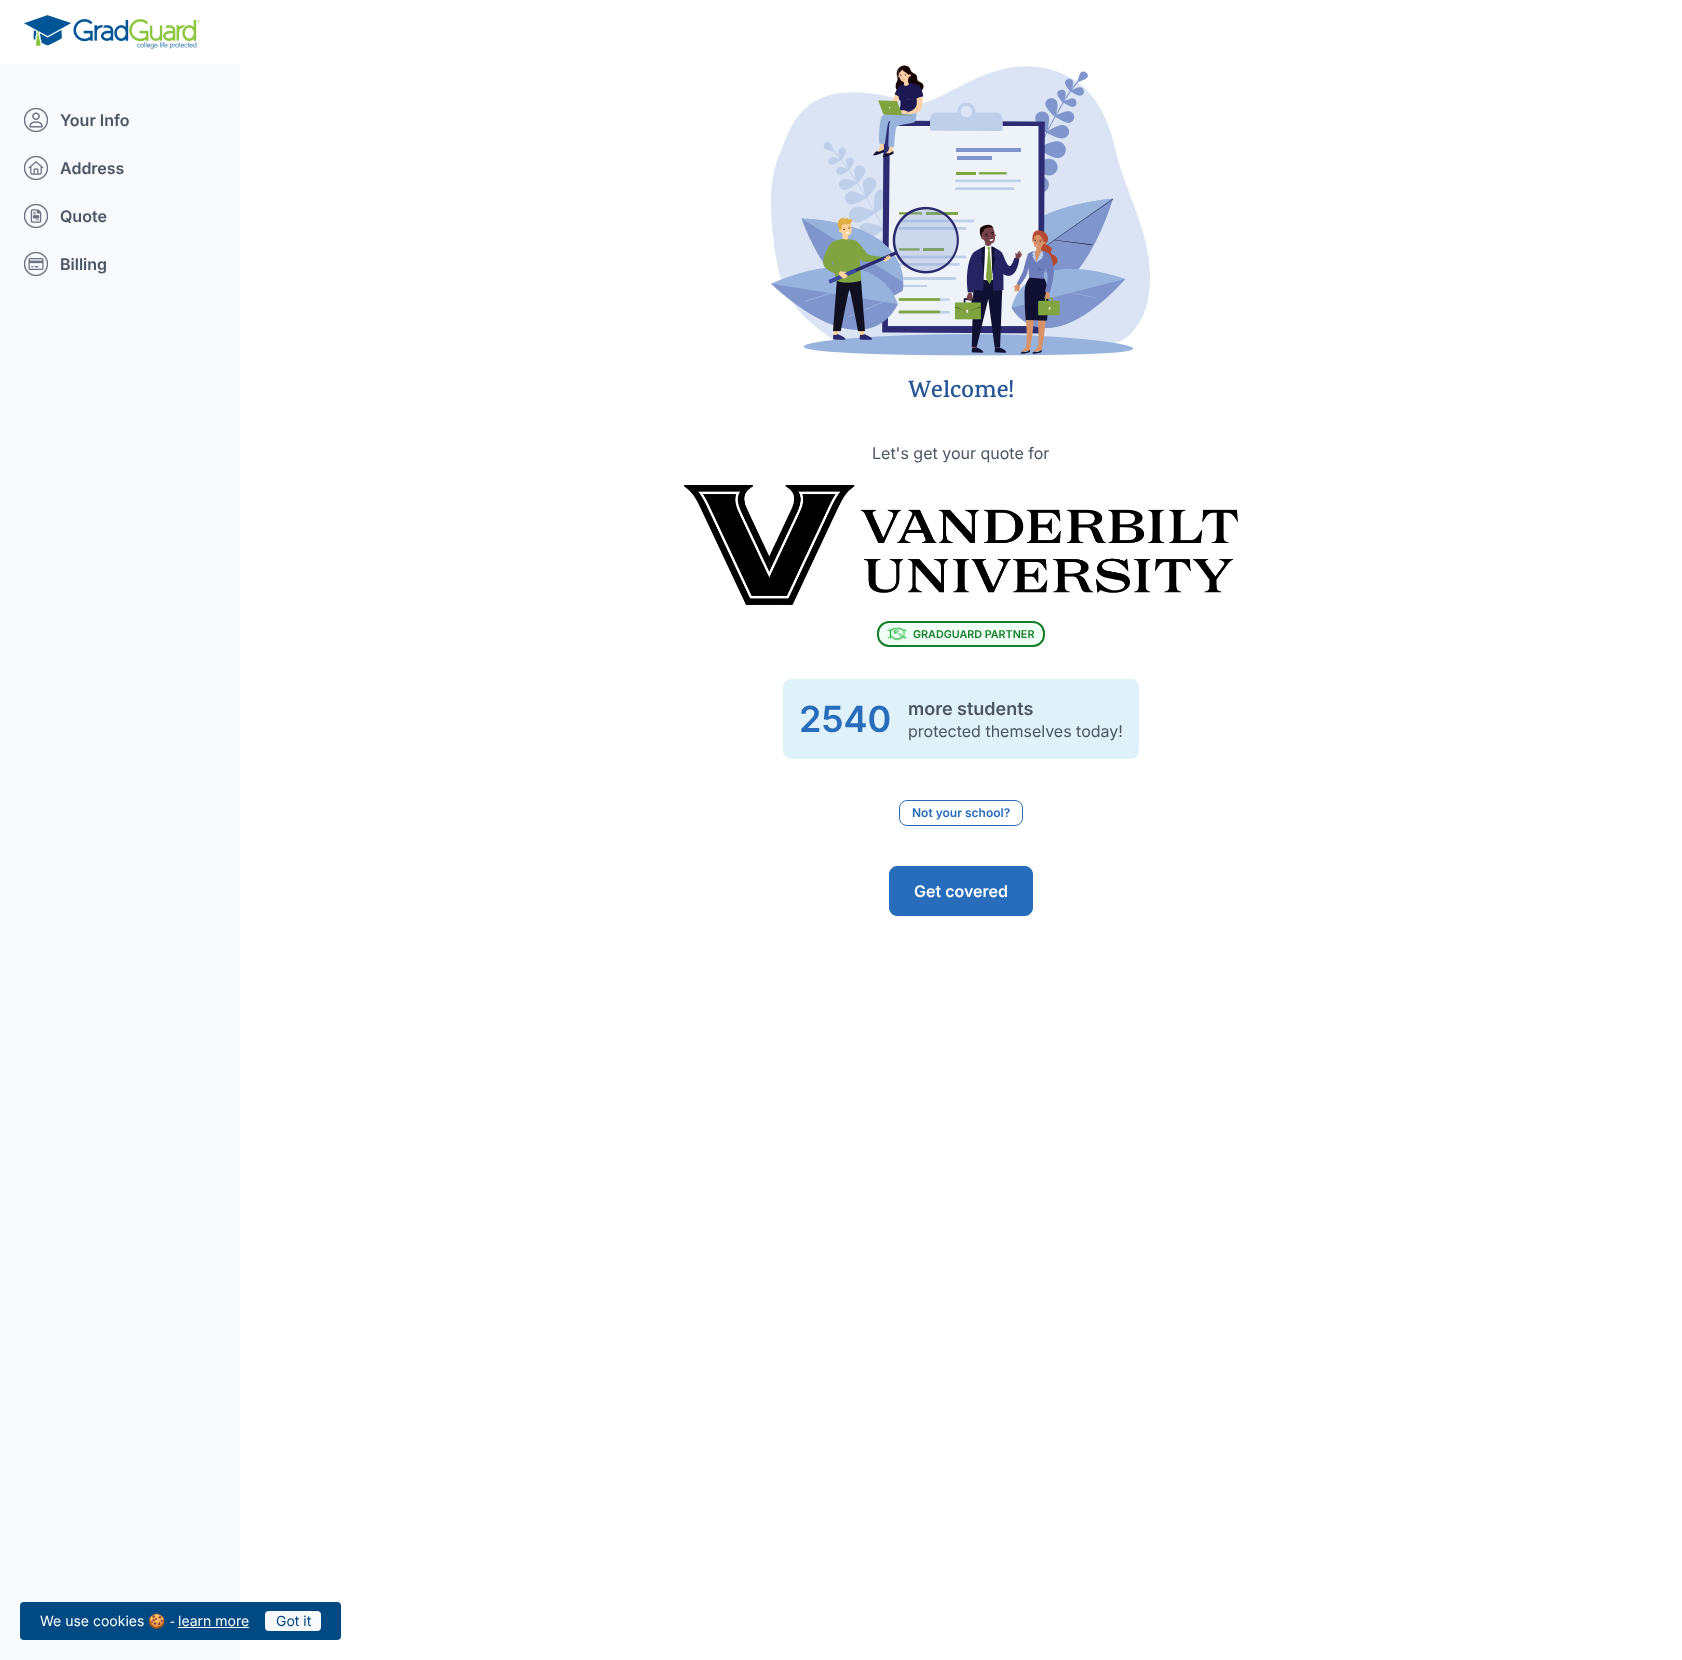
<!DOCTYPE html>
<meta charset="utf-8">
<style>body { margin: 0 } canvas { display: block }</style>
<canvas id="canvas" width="1682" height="1660"></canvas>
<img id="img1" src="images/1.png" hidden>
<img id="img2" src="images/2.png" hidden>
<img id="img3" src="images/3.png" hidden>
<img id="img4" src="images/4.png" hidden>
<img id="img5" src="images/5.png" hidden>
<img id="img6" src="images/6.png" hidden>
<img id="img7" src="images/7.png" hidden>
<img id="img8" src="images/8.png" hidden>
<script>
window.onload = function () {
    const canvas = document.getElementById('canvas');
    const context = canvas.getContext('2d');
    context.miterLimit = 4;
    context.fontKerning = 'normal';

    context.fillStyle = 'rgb(255, 255, 255)';
    context.fillRect(0, 0, 1682, 1660);
    context.drawImage(document.getElementById('img1'), 24, 15, 176, 34);
    context.fillStyle = 'rgb(247, 250, 252)';
    context.fillRect(0, 64, 240, 1596);
    context.drawImage(document.getElementById('img2'), 24, 108, 24, 24);
    context.drawImage(document.getElementById('img3'), 24, 156, 24, 24);
    context.drawImage(document.getElementById('img4'), 24, 204, 24, 24);
    context.drawImage(document.getElementById('img5'), 24, 252, 24, 24);
    context.drawImage(document.getElementById('img6'), 771, 65, 379, 291);
    context.drawImage(document.getElementById('img7'), 684, 485, 554, 120);
    context.fillStyle = 'rgb(240, 255, 246)';
    context.beginPath();
    context.roundRect(878, 622, 166, 24, 11);
    context.fill();
    context.strokeStyle = 'rgb(22, 125, 42)';
    context.lineWidth = 2;
    context.stroke();
    context.drawImage(document.getElementById('img8'), 887, 627, 20, 14);
    context.fillStyle = 'rgb(224, 242, 249)';
    context.beginPath();
    context.roundRect(783, 679, 356, 80, 8);
    context.fill();
    context.beginPath();
    context.roundRect(899.5, 800.5, 123, 25, 7.5);
    context.strokeStyle = 'rgb(39, 109, 187)';
    context.lineWidth = 1;
    context.stroke();
    context.fillStyle = 'rgb(39, 109, 187)';
    context.beginPath();
    context.roundRect(889.5, 866.5, 143, 49, 7.5);
    context.fill();
    context.stroke();
    context.fillStyle = 'rgb(0, 73, 130)';
    context.beginPath();
    context.roundRect(20, 1602, 321, 38, 4);
    context.fill();
    context.fillStyle = 'rgb(255, 255, 255)';
    context.fillRect(178, 1627, 71, 1);
    context.fillStyle = 'rgb(247, 250, 252)';
    context.beginPath();
    context.roundRect(265, 1611, 56, 20, 4);
    context.fill();
    context.font = '600 16px Inter';
    context.fillStyle = 'rgb(75, 85, 99)';
    context.fillText('Your Info', 60, 126);
    context.fillText('Address', 60, 174);
    context.fillText('Quote', 60, 222);
    context.fillText('Billing', 60, 270);
    context.font = '600 24px Karma';
    context.fillStyle = 'rgb(37, 85, 149)';
    context.fillText('Welcome!', 908, 397);
    context.font = '16px Inter';
    context.fillStyle = 'rgb(75, 85, 99)';
    context.fillText('Let\'s get your quote for', 872, 459);
    context.font = '600 10.75px Inter';
    context.fillStyle = 'rgb(22, 125, 42)';
    context.fillText('GRADGUARD PARTNER', 913, 638);
    context.font = '600 36px Inter';
    context.fillStyle = 'rgb(39, 109, 187)';
    context.fillText('2540', 799, 732);
    context.font = '600 18px Inter';
    context.fillStyle = 'rgb(75, 85, 99)';
    context.fillText('more students', 908, 715);
    context.font = '16px Inter';
    context.fillText('protected themselves today!', 908, 737);
    context.font = '600 12px Inter';
    context.fillStyle = 'rgb(39, 109, 187)';
    context.fillText('Not your school?', 912, 817);
    context.font = '600 16px Inter';
    context.fillStyle = 'rgb(255, 255, 255)';
    context.fillText('Get covered', 914, 897);
    context.font = '14px Inter';
    context.fillText('We use cookies', 40, 1626);
    context.font = '14px Noto Color Emoji';
    context.fillText('🍪', 148, 1626);
    context.font = '14px Liberation Sans';
    context.fillText('‐', 170, 1626);
    context.font = '14px Inter';
    context.fillText('learn more', 178, 1626);
    context.fillStyle = 'rgb(0, 73, 130)';
    context.fillText('Got it', 276, 1626);
};
</script>
